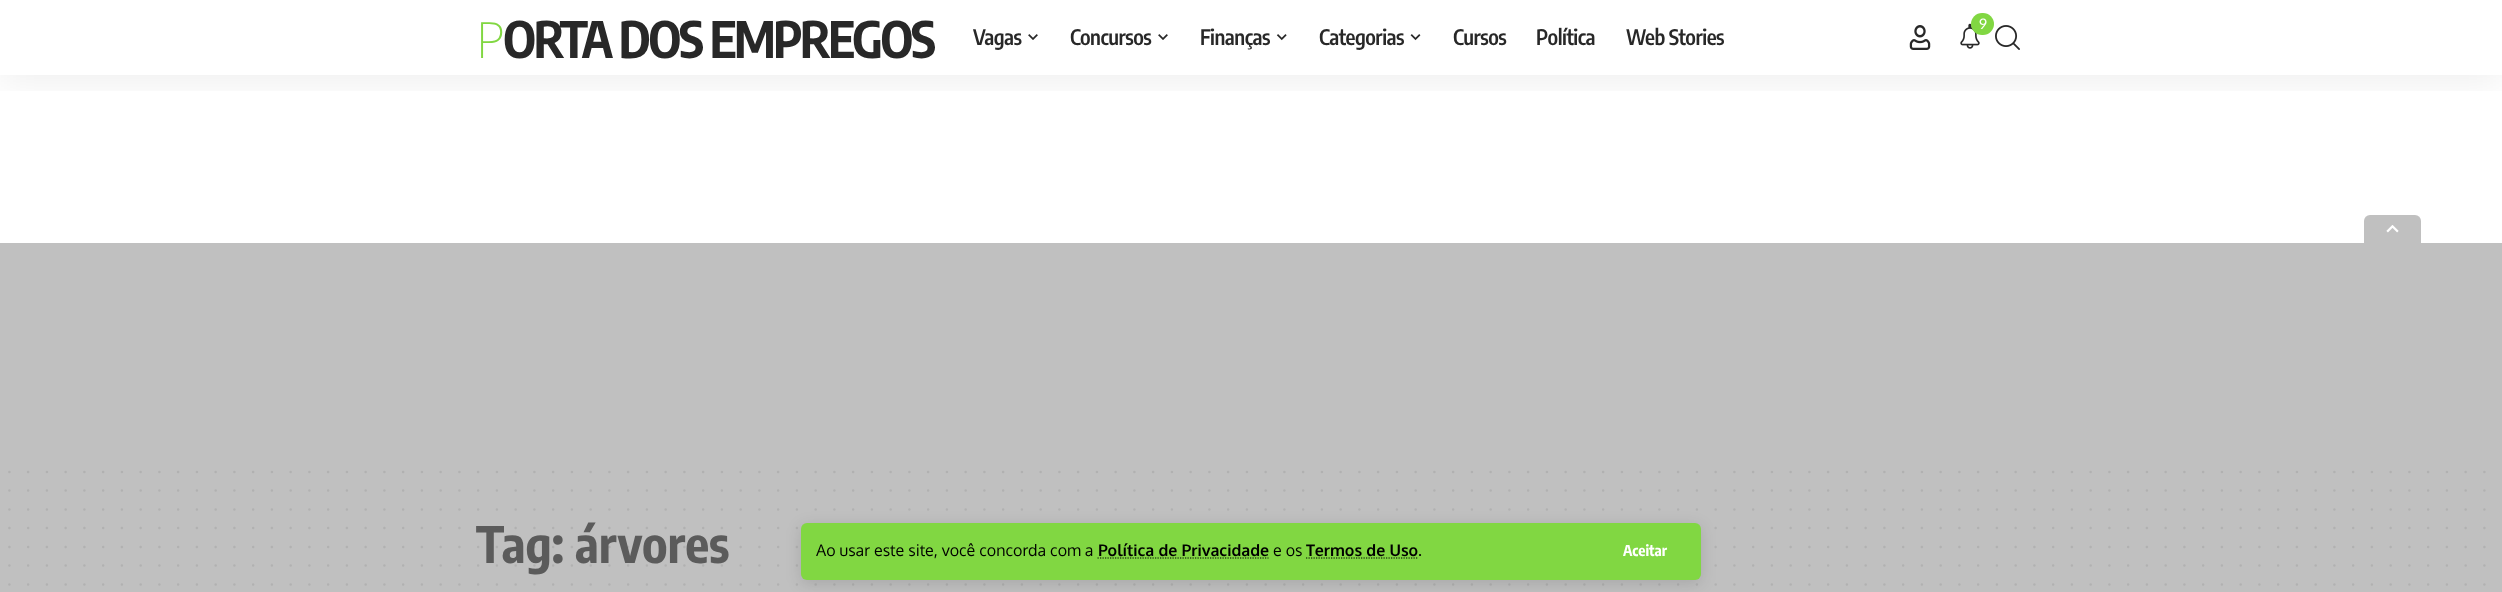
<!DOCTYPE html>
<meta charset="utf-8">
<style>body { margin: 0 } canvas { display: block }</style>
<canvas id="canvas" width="2502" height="592"></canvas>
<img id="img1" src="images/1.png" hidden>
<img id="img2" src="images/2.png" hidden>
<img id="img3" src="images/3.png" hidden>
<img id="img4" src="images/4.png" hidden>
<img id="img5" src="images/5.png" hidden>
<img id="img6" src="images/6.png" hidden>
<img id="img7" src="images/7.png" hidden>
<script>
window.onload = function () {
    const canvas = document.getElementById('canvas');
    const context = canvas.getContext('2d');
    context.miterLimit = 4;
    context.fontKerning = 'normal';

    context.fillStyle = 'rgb(255, 255, 255)';
    context.fillRect(0, 0, 2502, 592);
    context.fillStyle = 'rgb(192, 192, 192)';
    context.fillRect(0, 243, 2502, 349);
    context.save();
    context.beginPath();
    context.rect(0, 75, 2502, 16);
    context.clip();
    context.fillStyle = 'rgba(0, 0, 0, 0.07)';
    context.filter = 'blur(19px)';
    context.beginPath();
    context.rect(0, 5, 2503, 75);
    context.fill();
    context.filter = 'none';
    context.restore();
    context.drawImage(document.getElementById('img1'), 1028, 34, 10, 6);
    context.drawImage(document.getElementById('img1'), 1158, 34, 10, 6);
    context.drawImage(document.getElementById('img2'), 1276, 34, 11, 7);
    context.drawImage(document.getElementById('img3'), 1410, 34, 11, 7);
    context.drawImage(document.getElementById('img4'), 1960, 23, 20, 26);
    context.fillStyle = 'rgb(129, 215, 66)';
    context.beginPath();
    context.roundRect(1971, 13, 23, 22, 11);
    context.fill();
    context.drawImage(document.getElementById('img5'), 1909, 25, 22, 25);
    context.drawImage(document.getElementById('img6'), 1995, 25, 25, 25);
    context.beginPath();
    context.moveTo(9.4, 471.9);
    context.lineTo(2484.6, 471.9);
    context.strokeStyle = 'rgb(177, 177, 177)';
    context.lineWidth = 2.5;
    context.lineCap = 'round';
    context.setLineDash([0, 18.75]);
    context.stroke();
    context.beginPath();
    context.moveTo(9.4, 490.6);
    context.lineTo(2484.6, 490.6);
    context.stroke();
    context.beginPath();
    context.moveTo(9.4, 509.4);
    context.lineTo(2484.6, 509.4);
    context.stroke();
    context.beginPath();
    context.moveTo(9.4, 584.4);
    context.lineTo(2484.6, 584.4);
    context.stroke();
    context.fillStyle = 'rgb(192, 192, 192)';
    context.beginPath();
    context.roundRect(2364, 215, 57, 28, [6, 6, 0, 0]);
    context.fill();
    context.drawImage(document.getElementById('img7'), 2386, 225, 13, 8);
    context.letterSpacing = '-2.5px';
    context.font = '200 50px Noto Sans';
    context.fillStyle = 'rgb(129, 215, 66)';
    context.fillText('P', 476, 58);
    context.font = 'bold 50px Encode Sans Condensed';
    context.fillStyle = 'rgb(40, 40, 40)';
    context.fillText('ORTA DOS EMPREGOS', 503, 58);
    context.letterSpacing = '-0.5px';
    context.font = '600 21.25px Encode Sans Condensed';
    context.fillText('Vagas', 973, 45);
    context.fillText('Concursos', 1070, 45);
    context.fillText('Finanças', 1200, 45);
    context.fillText('Categorias', 1319, 45);
    context.fillText('Cursos', 1453, 45);
    context.fillText('Política', 1536, 45);
    context.fillText('Web Stories', 1626, 45);
    context.letterSpacing = '0px';
    context.font = '14px Oxygen';
    context.fillStyle = 'rgb(255, 255, 255)';
    context.fillText('9', 1979, 29);
    context.font = 'bold 50px Encode Sans Condensed';
    context.fillStyle = 'rgb(91, 91, 91)';
    context.fillText('Tag: árvores', 476, 563);
    context.beginPath();
    context.moveTo(9.4, 565.6);
    context.lineTo(2484.6, 565.6);
    context.stroke();
    context.beginPath();
    context.moveTo(9.4, 546.9);
    context.lineTo(2484.6, 546.9);
    context.strokeStyle = 'rgba(91, 91, 91, 0.15)';
    context.stroke();
    context.beginPath();
    context.moveTo(9.4, 528.1);
    context.lineTo(2484.6, 528.1);
    context.stroke();
    context.fillStyle = 'rgba(0, 0, 0, 0.12)';
    context.filter = 'blur(7.5px)';
    context.beginPath();
    context.roundRect(801, 526, 900, 58, 6);
    context.fill();
    context.filter = 'none';
    context.fillStyle = 'rgb(129, 215, 66)';
    context.beginPath();
    context.roundRect(801, 523, 900, 57, 6);
    context.fill();
    context.font = 'bold 15px Encode Sans Condensed';
    context.fillStyle = 'rgb(255, 255, 255)';
    context.fillText('Aceitar', 1623, 556);
    context.font = '16px Oxygen';
    context.fillStyle = 'rgb(0, 0, 0)';
    context.fillText('.', 1418, 556);
    context.font = 'bold 16px Oxygen';
    context.fillText('Termos de Uso', 1306, 556);
    context.beginPath();
    context.moveTo(1306, 558);
    context.lineTo(1418, 558);
    context.strokeStyle = 'rgb(0, 0, 0)';
    context.lineWidth = 1.2;
    context.lineCap = 'butt';
    context.setLineDash([1.25, 1.25]);
    context.stroke();
    context.font = '16px Oxygen';
    context.fillText('e os', 1273, 556);
    context.font = 'bold 16px Oxygen';
    context.fillText('Política de Privacidade', 1098, 556);
    context.beginPath();
    context.moveTo(1097.5, 558);
    context.lineTo(1268.5, 558);
    context.stroke();
    context.font = '16px Oxygen';
    context.fillText('Ao usar este site, você concorda com a', 816, 556);
};
</script>
